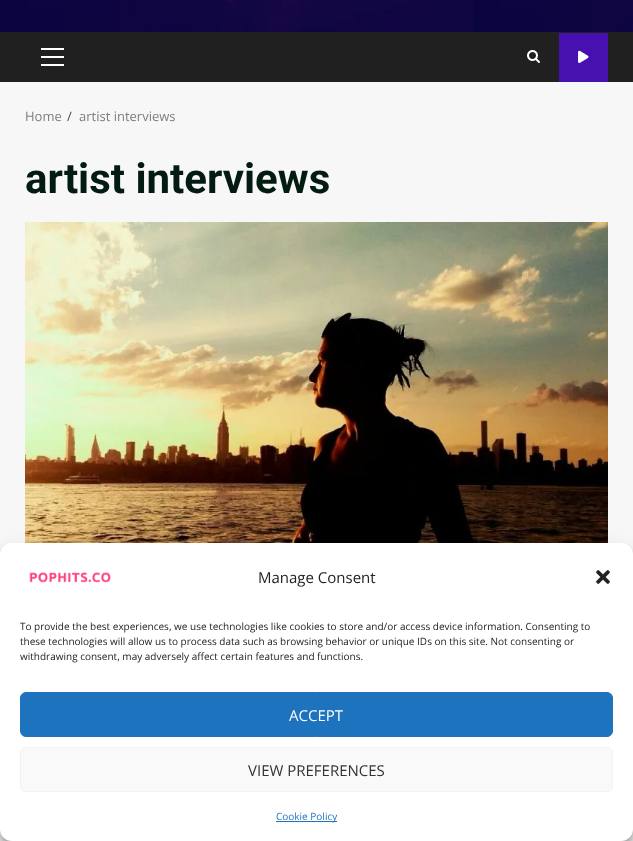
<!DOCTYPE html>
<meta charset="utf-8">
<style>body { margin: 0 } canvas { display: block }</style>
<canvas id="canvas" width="633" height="841"></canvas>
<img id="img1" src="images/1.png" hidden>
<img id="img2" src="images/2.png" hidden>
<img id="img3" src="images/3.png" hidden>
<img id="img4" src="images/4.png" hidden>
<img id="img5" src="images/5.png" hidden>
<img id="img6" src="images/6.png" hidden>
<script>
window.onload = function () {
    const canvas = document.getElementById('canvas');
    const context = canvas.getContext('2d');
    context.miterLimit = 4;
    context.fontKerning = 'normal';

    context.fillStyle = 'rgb(247, 247, 247)';
    context.fillRect(0, 0, 633, 841);
    context.drawImage(document.getElementById('img1'), 0, 0, 633, 32);
    context.fillStyle = 'rgb(32, 32, 32)';
    context.fillRect(0, 32, 633, 50);
    context.fillStyle = 'rgb(255, 255, 255)';
    context.fillRect(41, 56, 23, 2);
    context.fillRect(41, 48, 23, 2);
    context.fillRect(41, 64, 23, 2);
    context.drawImage(document.getElementById('img2'), 527, 50, 13, 13);
    context.fillStyle = 'rgb(71, 17, 176)';
    context.fillRect(559, 33, 49, 49);
    context.drawImage(document.getElementById('img3'), 578, 50, 11, 13);
    context.drawImage(document.getElementById('img4'), 25, 222, 583, 321);
    context.fillStyle = 'rgba(0, 0, 0, 0.23)';
    context.filter = 'blur(3px)';
    context.beginPath();
    context.roundRect(0, 549, 633, 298, 12);
    context.fill();
    context.filter = 'none';
    context.fillStyle = 'rgba(0, 0, 0, 0.19)';
    context.filter = 'blur(10px)';
    context.beginPath();
    context.roundRect(0, 553, 633, 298, 12);
    context.fill();
    context.filter = 'none';
    context.fillStyle = 'rgb(255, 255, 255)';
    context.beginPath();
    context.roundRect(0, 543, 633, 298, 12);
    context.fill();
    context.drawImage(document.getElementById('img5'), 29, 572, 82, 11);
    context.drawImage(document.getElementById('img6'), 596, 570, 14, 14);
    context.fillStyle = 'rgb(30, 115, 190)';
    context.beginPath();
    context.roundRect(20.5, 692.5, 592, 44, 5.5);
    context.fill();
    context.strokeStyle = 'rgb(30, 115, 190)';
    context.stroke();
    context.fillStyle = 'rgb(249, 249, 249)';
    context.beginPath();
    context.roundRect(20.5, 747.5, 592, 44, 5.5);
    context.fill();
    context.strokeStyle = 'rgb(242, 242, 242)';
    context.stroke();
    context.fillStyle = 'rgb(30, 115, 190)';
    context.fillRect(276, 821, 61, 1);
    context.font = '13px Open Sans';
    context.fillStyle = 'rgb(126, 126, 126)';
    context.fillText('Home', 25, 121);
    context.fillStyle = 'rgb(74, 74, 74)';
    context.fillText('/', 67, 121);
    context.fillStyle = 'rgb(126, 126, 126)';
    context.fillText('artist interviews', 79, 121);
    context.font = 'bold 42px Roboto';
    context.fillStyle = 'rgb(3, 27, 17)';
    context.fillText('artist interviews', 25, 193);
    context.font = '15px Open Sans';
    context.fillStyle = 'rgb(34, 34, 34)';
    context.fillText('Manage Consent', 258, 583);
    context.font = '10px Open Sans';
    context.fillText('To provide the best experiences, we use technologies like cookies to store and/or access device information. Consenting to', 20, 630);
    context.fillText('these technologies will allow us to process data such as browsing behavior or unique IDs on this site. Not consenting or', 20, 645);
    context.fillText('withdrawing consent, may adversely affect certain features and functions.', 20, 660);
    context.font = '15px Open Sans';
    context.fillStyle = 'rgb(255, 255, 255)';
    context.fillText('ACCEPT', 289, 721);
    context.fillStyle = 'rgb(51, 51, 51)';
    context.fillText('VIEW PREFERENCES', 248, 776);
    context.font = '10px Open Sans';
    context.fillStyle = 'rgb(30, 115, 190)';
    context.fillText('Cookie Policy', 276, 820);
};
</script>
